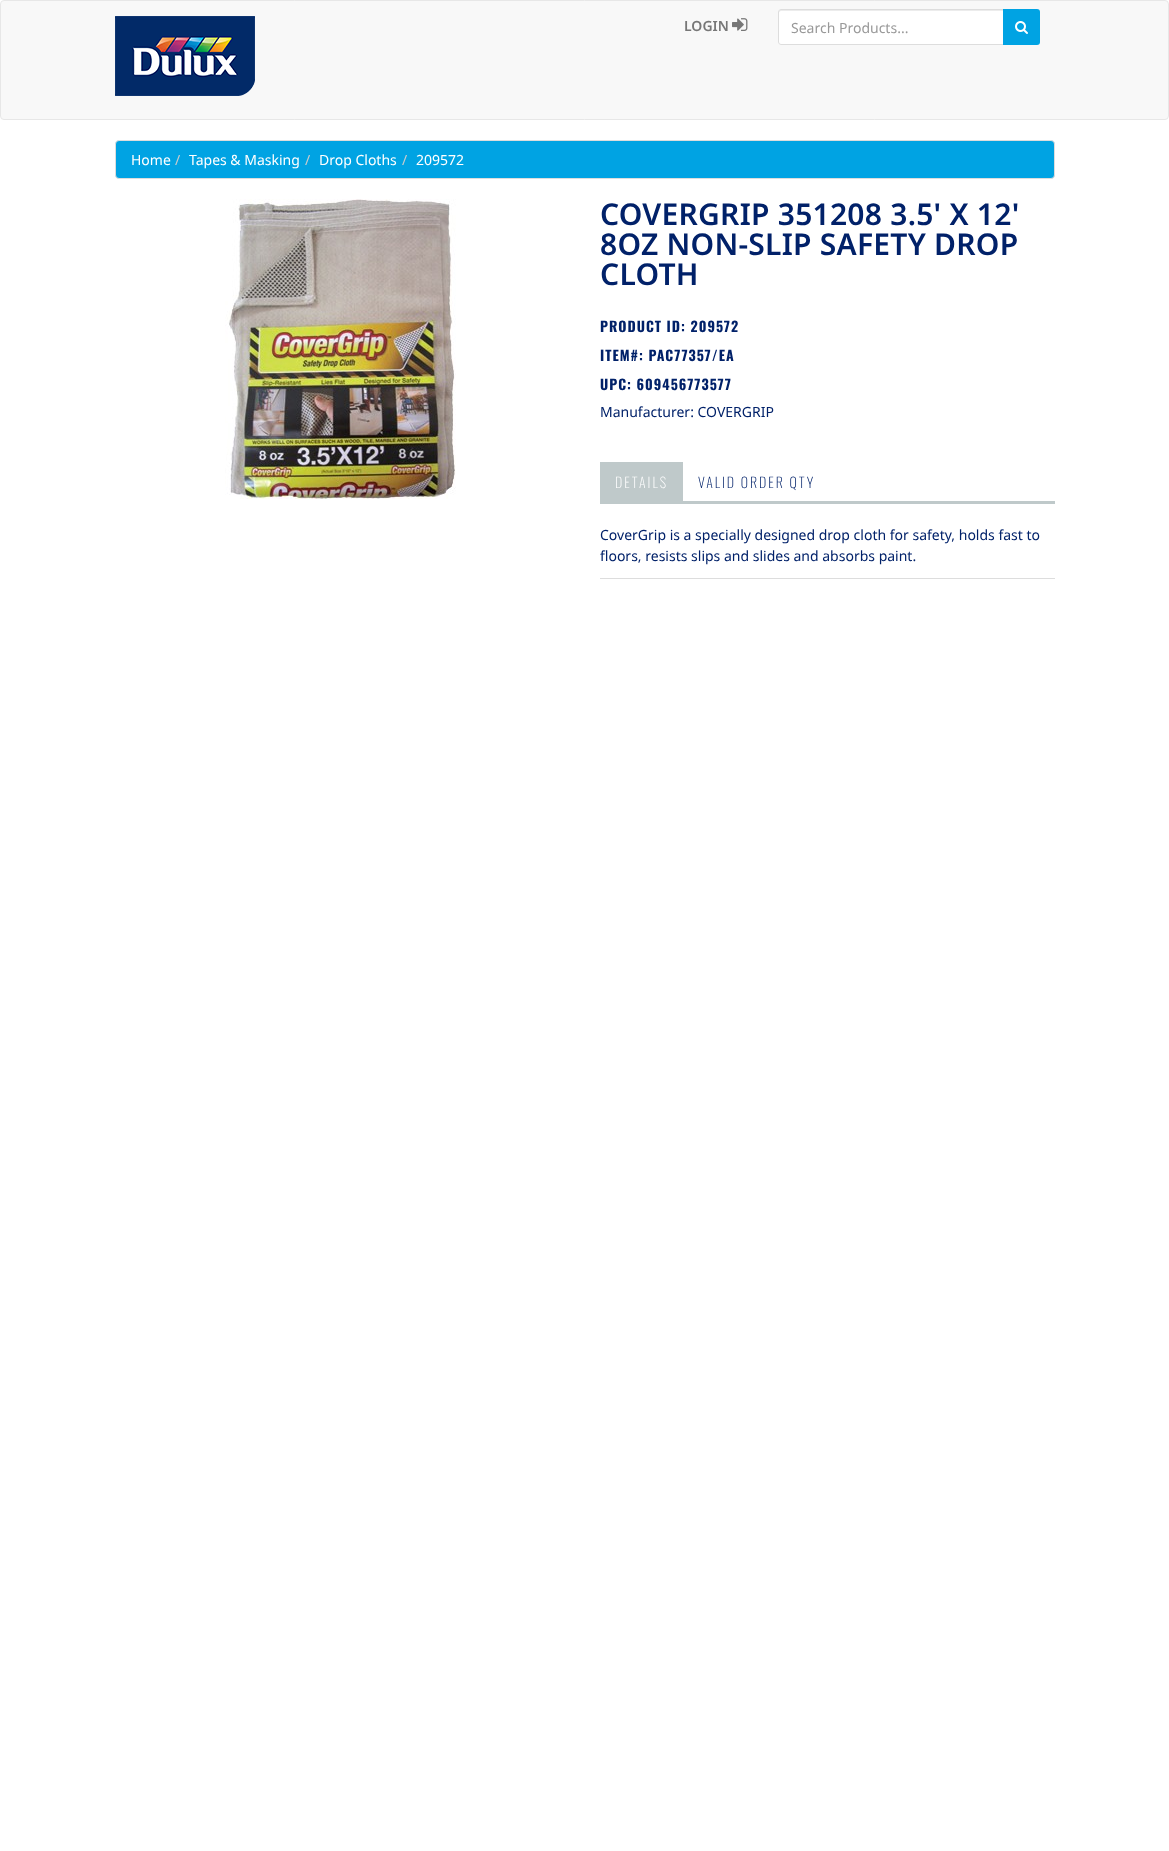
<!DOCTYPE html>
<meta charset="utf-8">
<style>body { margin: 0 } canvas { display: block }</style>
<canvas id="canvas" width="1169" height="1851"></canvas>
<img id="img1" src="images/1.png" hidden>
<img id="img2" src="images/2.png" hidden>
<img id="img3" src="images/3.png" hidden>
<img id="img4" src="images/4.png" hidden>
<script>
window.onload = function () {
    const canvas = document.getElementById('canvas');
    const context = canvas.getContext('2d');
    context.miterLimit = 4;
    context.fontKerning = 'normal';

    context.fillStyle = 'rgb(255, 255, 255)';
    context.fillRect(0, 0, 1169, 1851);
    context.fillStyle = 'rgb(248, 248, 248)';
    context.beginPath();
    context.roundRect(0.5, 0.5, 1168, 119, 3.5);
    context.fill();
    context.strokeStyle = 'rgb(231, 231, 231)';
    context.stroke();
    context.drawImage(document.getElementById('img1'), 115, 16, 140, 80);
    context.drawImage(document.getElementById('img2'), 732, 18, 16, 13);
    context.fillStyle = 'rgb(255, 255, 255)';
    context.beginPath();
    context.roundRect(778, 9, 226, 36, [3, 0, 0, 3]);
    context.fill();
    context.fillStyle = 'rgb(236, 236, 236)';
    context.beginPath();
    context.moveTo(781, 11);
    context.lineTo(1003, 11);
    context.lineTo(1003, 10);
    context.lineTo(780, 10);
    context.bezierCurveTo(779, 11, 779, 12, 779, 13);
    context.bezierCurveTo(779, 12, 780, 11, 781, 11);
    context.closePath();
    context.fill();
    context.beginPath();
    context.roundRect(778.5, 9.5, 225, 35, [2.5, 0, 0, 2.5]);
    context.strokeStyle = 'rgb(221, 221, 221)';
    context.stroke();
    context.fillStyle = 'rgb(0, 163, 227)';
    context.beginPath();
    context.roundRect(1003, 9, 37, 36, [0, 3, 3, 0]);
    context.fill();
    context.drawImage(document.getElementById('img3'), 1015, 21, 13, 13);
    context.beginPath();
    context.roundRect(115.5, 140.5, 939, 38, 3.5);
    context.fill();
    context.stroke();
    context.drawImage(document.getElementById('img4'), 225, 199, 231, 300);
    context.fillStyle = 'rgb(221, 221, 221)';
    context.fillRect(600, 578, 455, 1);
    context.fillStyle = 'rgb(191, 201, 202)';
    context.fillRect(600, 501, 455, 3);
    context.fillRect(600, 462, 83, 39);
    context.font = '600 14px Noto Sans';
    context.fillStyle = 'rgb(119, 119, 119)';
    context.fillText('LOGIN', 684, 31);
    context.font = '14px Noto Sans';
    context.fillStyle = 'rgb(153, 153, 153)';
    context.fillText('Search Products...', 791, 33);
    context.fillStyle = 'rgb(255, 255, 255)';
    context.fillText('Home', 131, 165);
    context.fillStyle = 'rgb(204, 204, 204)';
    context.fillText('/', 175, 165);
    context.fillStyle = 'rgb(255, 255, 255)';
    context.fillText('Tapes & Masking', 189, 165);
    context.fillStyle = 'rgb(204, 204, 204)';
    context.fillText('/', 305, 165);
    context.fillStyle = 'rgb(255, 255, 255)';
    context.fillText('Drop Cloths', 319, 165);
    context.fillStyle = 'rgb(204, 204, 204)';
    context.fillText('/', 402, 165);
    context.fillStyle = 'rgb(255, 255, 255)';
    context.fillText('209572', 416, 165);
    context.letterSpacing = '0.25px';
    context.font = '600 30px Noto Sans';
    context.fillStyle = 'rgb(1, 33, 105)';
    context.fillText('COVERGRIP 351208 3.5\' X 12\'', 600, 225);
    context.fillText('8OZ NON-SLIP SAFETY DROP', 600, 255);
    context.fillText('CLOTH', 600, 285);
    context.letterSpacing = '1px';
    context.font = 'bold 14px Oswald';
    context.fillText('PRODUCT ID: 209572', 600, 332);
    context.fillText('ITEM#: PAC77357/EA', 600, 361);
    context.fillText('UPC: 609456773577', 600, 390);
    context.letterSpacing = '0px';
    context.font = '14px Noto Sans';
    context.fillText('Manufacturer: COVERGRIP', 600, 417);
    context.letterSpacing = '2px';
    context.font = '200 14px Oswald';
    context.fillStyle = 'rgb(255, 255, 255)';
    context.fillText('DETAILS', 615, 488);
    context.fillStyle = 'rgb(1, 33, 105)';
    context.fillText('VALID ORDER QTY', 698, 488);
    context.letterSpacing = '0px';
    context.font = '14px Noto Sans';
    context.fillText('CoverGrip is a specially designed drop cloth for safety, holds fast to', 600, 540);
    context.fillText('floors, resists slips and slides and absorbs paint.', 600, 561);
};
</script>
